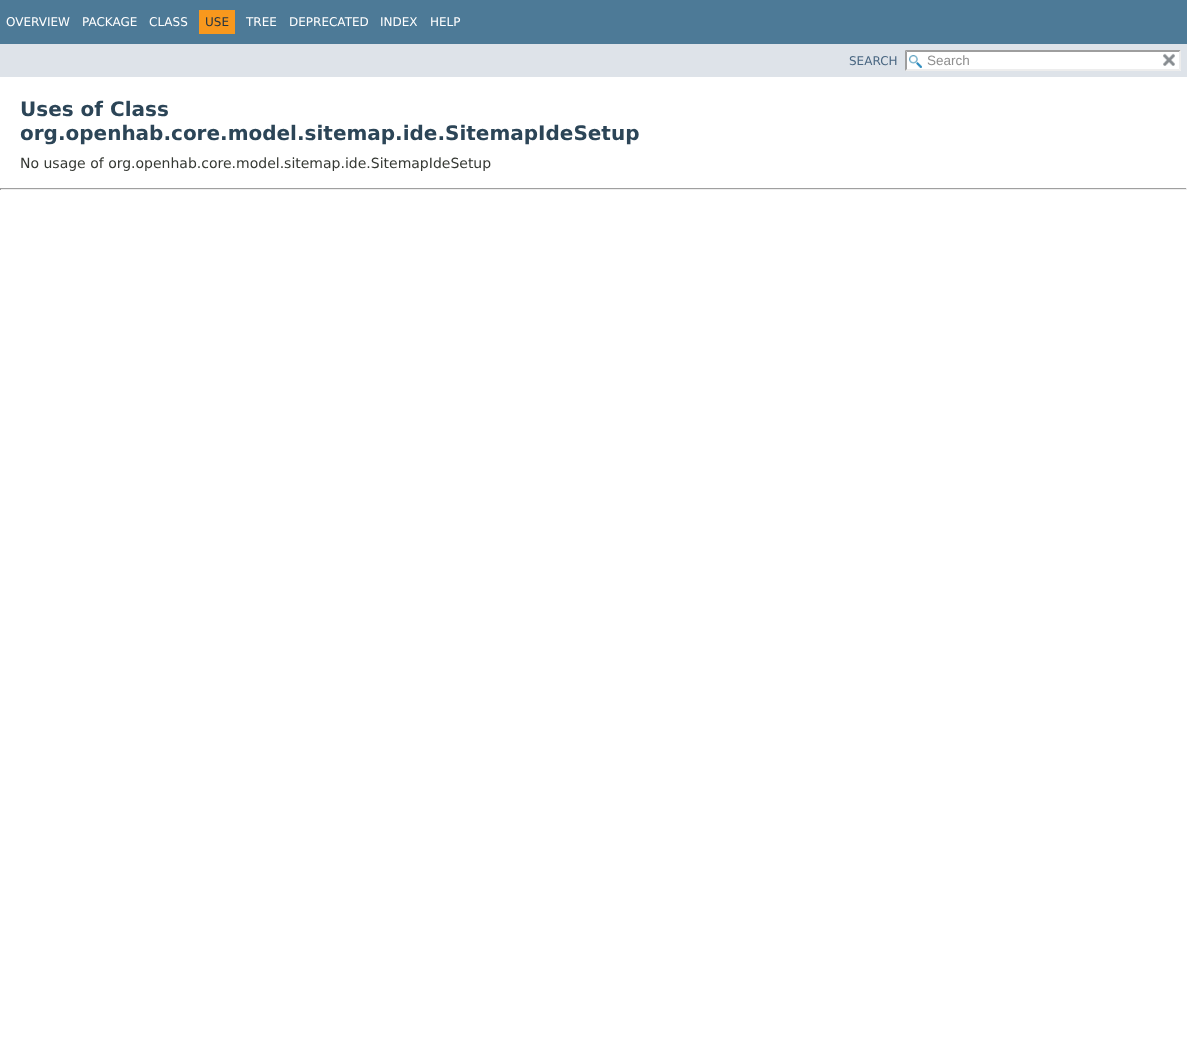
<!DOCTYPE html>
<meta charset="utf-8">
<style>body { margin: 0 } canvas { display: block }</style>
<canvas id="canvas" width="1187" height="1057"></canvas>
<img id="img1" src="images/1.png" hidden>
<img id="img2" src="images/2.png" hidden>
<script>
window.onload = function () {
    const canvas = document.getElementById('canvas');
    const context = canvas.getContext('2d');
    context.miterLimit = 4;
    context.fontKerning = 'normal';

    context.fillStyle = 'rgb(255, 255, 255)';
    context.fillRect(0, 0, 1187, 1057);
    context.fillStyle = 'rgb(77, 122, 151)';
    context.fillRect(0, 0, 1187, 44);
    context.fillStyle = 'rgb(248, 152, 29)';
    context.fillRect(199, 10, 36, 24);
    context.fillStyle = 'rgb(222, 227, 233)';
    context.fillRect(0, 44, 1187, 33);
    context.fillStyle = 'rgb(255, 255, 255)';
    context.fillRect(905, 50, 276, 21);
    context.drawImage(document.getElementById('img1'), 909, 55, 13, 13);
    context.fillStyle = 'rgb(158, 158, 158)';
    context.beginPath();
    context.moveTo(905, 50);
    context.lineTo(1181, 50);
    context.lineTo(1179, 52);
    context.lineTo(907, 52);
    context.closePath();
    context.fill();
    context.fillStyle = 'rgb(237, 237, 237)';
    context.beginPath();
    context.moveTo(1181, 50);
    context.lineTo(1181, 71);
    context.lineTo(1179, 69);
    context.lineTo(1179, 52);
    context.closePath();
    context.fill();
    context.beginPath();
    context.moveTo(1181, 71);
    context.lineTo(905, 71);
    context.lineTo(907, 69);
    context.lineTo(1179, 69);
    context.closePath();
    context.fill();
    context.fillStyle = 'rgb(158, 158, 158)';
    context.beginPath();
    context.moveTo(905, 71);
    context.lineTo(905, 50);
    context.lineTo(907, 52);
    context.lineTo(907, 69);
    context.closePath();
    context.fill();
    context.drawImage(document.getElementById('img2'), 1163, 53, 12, 13);
    context.fillStyle = 'rgb(159, 159, 159)';
    context.fillRect(0, 188, 1187, 1);
    context.fillStyle = 'rgb(238, 238, 238)';
    context.fillRect(1186, 188, 1, 2);
    context.fillRect(0, 189, 1187, 1);
    context.fillStyle = 'rgb(159, 159, 159)';
    context.fillRect(0, 188, 1, 2);
    context.font = '12px DejaVu Sans';
    context.fillStyle = 'rgb(255, 255, 255)';
    context.fillText('OVERVIEW', 6, 26);
    context.fillText('PACKAGE', 82, 26);
    context.fillText('CLASS', 149, 26);
    context.fillStyle = 'rgb(37, 52, 65)';
    context.fillText('USE', 205, 26);
    context.fillStyle = 'rgb(255, 255, 255)';
    context.fillText('TREE', 246, 26);
    context.fillText('DEPRECATED', 289, 26);
    context.fillText('INDEX', 380, 26);
    context.fillText('HELP', 430, 26);
    context.fillStyle = 'rgb(74, 103, 130)';
    context.fillText('SEARCH', 849, 65);
    context.font = '13.5px Liberation Sans';
    context.fillStyle = 'rgb(144, 144, 144)';
    context.fillText('Search', 927, 65);
    context.font = 'bold 20px DejaVu Sans';
    context.fillStyle = 'rgb(44, 69, 87)';
    context.fillText('Uses of Class', 20, 116);
    context.fillText('org.openhab.core.model.sitemap.ide.SitemapIdeSetup', 20, 140);
    context.font = '14px DejaVu Sans';
    context.fillStyle = 'rgb(53, 56, 51)';
    context.fillText('No usage of org.openhab.core.model.sitemap.ide.SitemapIdeSetup', 20, 168);
};
</script>
